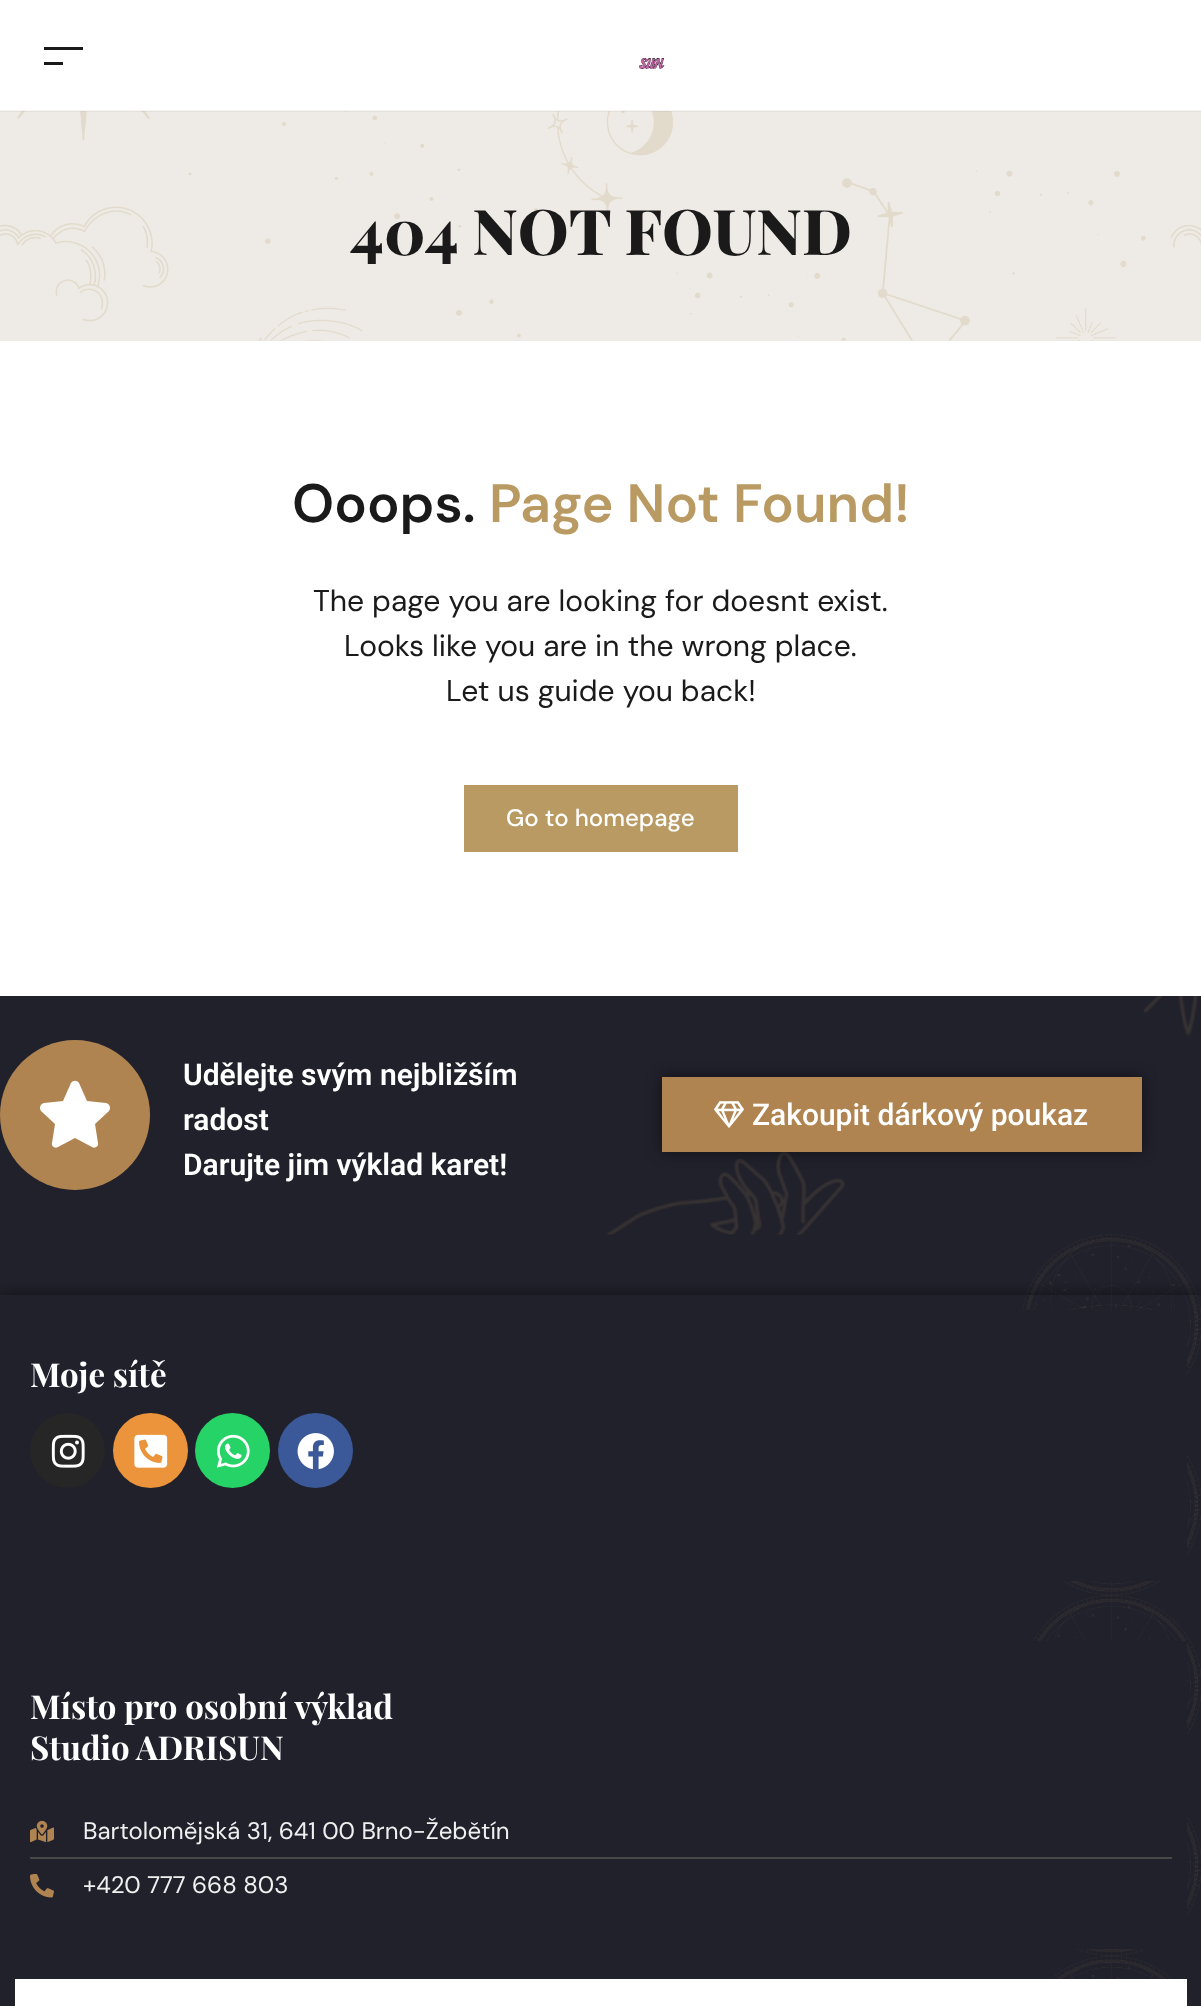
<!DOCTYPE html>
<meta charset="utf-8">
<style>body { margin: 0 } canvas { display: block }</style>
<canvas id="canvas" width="1201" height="2006"></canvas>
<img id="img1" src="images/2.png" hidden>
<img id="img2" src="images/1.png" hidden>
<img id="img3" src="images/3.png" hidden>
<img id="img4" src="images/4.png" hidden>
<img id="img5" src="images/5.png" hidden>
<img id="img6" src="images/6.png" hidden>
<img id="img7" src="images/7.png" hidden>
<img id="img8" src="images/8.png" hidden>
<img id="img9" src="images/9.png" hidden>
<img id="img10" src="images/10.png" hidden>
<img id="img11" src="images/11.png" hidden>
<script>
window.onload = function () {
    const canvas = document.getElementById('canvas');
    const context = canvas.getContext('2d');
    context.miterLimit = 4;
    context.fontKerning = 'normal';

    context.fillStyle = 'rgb(255, 255, 255)';
    context.fillRect(0, 0, 1201, 2006);
    context.fillStyle = 'rgb(238, 235, 230)';
    context.fillRect(0, 111, 1201, 230);
    context.drawImage(document.getElementById('img1'), 0, 111, 1201, 230);
    context.fillStyle = 'rgba(0, 0, 0, 0.04)';
    context.fillRect(0, 110, 1201, 2);
    context.fillStyle = 'rgb(26, 26, 26)';
    context.fillRect(44, 47, 39, 3);
    context.fillRect(44, 62, 19, 3);
    context.drawImage(document.getElementById('img2'), 639, 58, 26, 11);
    context.fillStyle = 'rgb(186, 154, 99)';
    context.fillRect(464, 785, 274, 67);
    context.fillStyle = 'rgb(33, 33, 44)';
    context.fillRect(0, 996, 1201, 1010);
    context.drawImage(document.getElementById('img3'), 606, 996, 592, 239);
    context.fillStyle = 'rgb(176, 132, 80)';
    context.beginPath();
    context.arc(75, 1115, 75, 0, 2 * Math.PI);
    context.fill();
    context.fillStyle = 'rgb(255, 255, 255)';
    context.beginPath();
    context.moveTo(71, 1083);
    context.lineTo(63, 1101);
    context.lineTo(44, 1103);
    context.bezierCurveTo(40, 1104, 39, 1108, 41, 1111);
    context.lineTo(55, 1124);
    context.lineTo(52, 1143);
    context.bezierCurveTo(51, 1146, 55, 1149, 58, 1147);
    context.lineTo(75, 1138);
    context.lineTo(92, 1147);
    context.bezierCurveTo(95, 1149, 99, 1146, 98, 1143);
    context.lineTo(95, 1124);
    context.lineTo(109, 1111);
    context.bezierCurveTo(111, 1108, 110, 1104, 106, 1103);
    context.lineTo(87, 1101);
    context.lineTo(79, 1083);
    context.bezierCurveTo(77, 1080, 73, 1080, 71, 1083);
    context.closePath();
    context.fill();
    context.fillStyle = 'rgba(0, 0, 0, 0.5)';
    context.filter = 'blur(7.5px)';
    context.beginPath();
    context.rect(662, 1077, 480, 75);
    context.fill();
    context.filter = 'none';
    context.fillStyle = 'rgb(176, 132, 80)';
    context.fillRect(662, 1077, 480, 75);
    context.drawImage(document.getElementById('img4'), 714, 1101, 30, 27);
    context.drawImage(document.getElementById('img5'), 1022, 1234, 179, 772);
    context.save();
    context.beginPath();
    context.rect(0, 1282, 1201, 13);
    context.clip();
    context.fillStyle = 'rgba(0, 0, 0, 0.5)';
    context.filter = 'blur(7.5px)';
    context.beginPath();
    context.rect(0, 1295, 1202, 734);
    context.fill();
    context.filter = 'none';
    context.restore();
    context.fillStyle = 'rgb(33, 33, 44)';
    context.fillRect(1022, 1310, 165, 271);
    context.fillStyle = 'rgb(38, 38, 38)';
    context.beginPath();
    context.arc(67.5, 1450.5, 37.5, 0, 2 * Math.PI);
    context.fill();
    context.drawImage(document.getElementById('img6'), 51, 1434, 34, 34);
    context.fillStyle = 'rgb(235, 148, 59)';
    context.beginPath();
    context.arc(150.5, 1450.5, 37.5, 0, 2 * Math.PI);
    context.fill();
    context.drawImage(document.getElementById('img7'), 134, 1434, 34, 34);
    context.fillStyle = 'rgb(37, 211, 102)';
    context.beginPath();
    context.arc(232.5, 1450.5, 37.5, 0, 2 * Math.PI);
    context.fill();
    context.drawImage(document.getElementById('img8'), 216, 1434, 34, 34);
    context.fillStyle = 'rgb(59, 89, 152)';
    context.beginPath();
    context.arc(315.5, 1450.5, 37.5, 0, 2 * Math.PI);
    context.fill();
    context.drawImage(document.getElementById('img9'), 297, 1433, 37, 37);
    context.fillStyle = 'rgb(33, 33, 44)';
    context.fillRect(1022, 1641, 165, 308);
    context.drawImage(document.getElementById('img10'), 30, 1820, 24, 23);
    context.fillStyle = 'rgb(73, 72, 72)';
    context.fillRect(30, 1857, 1142, 2);
    context.drawImage(document.getElementById('img11'), 30, 1874, 24, 24);
    context.fillStyle = 'rgb(255, 255, 255)';
    context.fillRect(15, 1979, 1172, 27);
    context.font = '800 63px Playfair Display';
    context.fillStyle = 'rgb(26, 26, 26)';
    context.fillText('404 NOT FOUND', 350, 255);
    context.font = '600 54px DM Sans';
    context.fillText('Ooops.', 292, 522);
    context.fillStyle = 'rgb(186, 154, 99)';
    context.fillText('Page Not Found!', 489, 522);
    context.font = '30px DM Sans';
    context.fillStyle = 'rgb(26, 26, 26)';
    context.fillText('The page you are looking for doesnt exist.', 313, 611);
    context.fillText('Looks like you are in the wrong place.', 344, 656);
    context.fillText('Let us guide you back!', 446, 701);
    context.font = '500 24px DM Sans';
    context.fillStyle = 'rgb(255, 255, 255)';
    context.fillText('Go to homepage', 506, 826);
    context.font = '600 30px Roboto';
    context.fillText('Udělejte svým nejbližším', 183, 1085);
    context.fillText('radost', 183, 1130);
    context.fillText('Darujte jim výklad karet!', 183, 1175);
    context.font = '500 30px Roboto';
    context.fillText('Zakoupit dárkový poukaz', 752, 1125);
    context.font = 'bold 33px Playfair Display';
    context.fillText('Moje sítě', 30, 1387);
    context.fillText('Místo pro osobní výklad', 30, 1719);
    context.fillText('Studio ADRISUN', 30, 1760);
    context.font = '24px DM Sans';
    context.fillStyle = 'rgb(240, 240, 240)';
    context.fillText('Bartolomějská 31, 641 00 Brno-Žebětín', 83, 1839);
    context.fillText('+420 777 668 803', 83, 1893);
};
</script>
